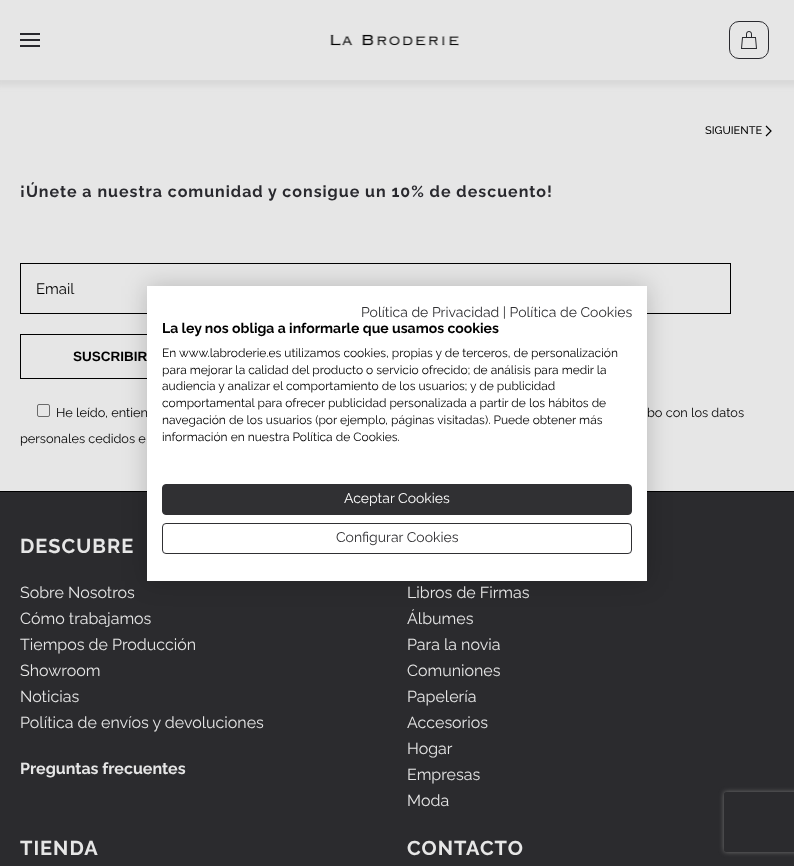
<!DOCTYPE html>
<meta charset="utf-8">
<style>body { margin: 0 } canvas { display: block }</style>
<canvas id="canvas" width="794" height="866"></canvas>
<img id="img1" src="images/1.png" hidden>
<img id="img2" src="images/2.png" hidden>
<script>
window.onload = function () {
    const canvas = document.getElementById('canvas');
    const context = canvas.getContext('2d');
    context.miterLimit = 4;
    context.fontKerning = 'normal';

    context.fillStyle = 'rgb(230, 230, 230)';
    context.fillRect(0, 0, 794, 866);
    context.fillStyle = 'rgba(188, 188, 188, 0.3)';
    context.filter = 'blur(2.5px)';
    context.beginPath();
    context.rect(-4, -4, 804, 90);
    context.fill();
    context.filter = 'none';
    context.fillStyle = 'rgb(230, 230, 230)';
    context.fillRect(0, 0, 794, 80);
    context.fillStyle = 'rgb(41, 41, 46)';
    context.fillRect(20, 33, 20, 2);
    context.fillRect(20, 39, 20, 2);
    context.fillRect(20, 45, 20, 2);
    context.drawImage(document.getElementById('img1'), 330, 34, 129, 12);
    context.beginPath();
    context.roundRect(729.5, 21.5, 39, 37, 9.5);
    context.strokeStyle = 'rgb(41, 41, 46)';
    context.stroke();
    context.drawImage(document.getElementById('img2'), 741, 31, 16, 18);
    context.beginPath();
    context.moveTo(766, 126);
    context.lineTo(771, 131);
    context.lineTo(766, 136);
    context.strokeStyle = 'rgb(0, 0, 0)';
    context.lineWidth = 1.2;
    context.stroke();
    context.lineWidth = 1;
    context.strokeRect(20.5, 263.5, 710, 50);
    context.strokeRect(20.5, 334.5, 199, 44);
    context.beginPath();
    context.roundRect(37.5, 404.5, 12, 12, 1.5);
    context.strokeStyle = 'rgb(106, 106, 106)';
    context.stroke();
    context.fillStyle = 'rgb(0, 0, 0)';
    context.fillRect(0, 491, 794, 1);
    context.fillStyle = 'rgb(43, 43, 46)';
    context.fillRect(0, 492, 794, 374);
    context.fillStyle = 'rgba(0, 0, 0, 0.2)';
    context.filter = 'blur(12px)';
    context.beginPath();
    context.rect(147, 286, 500, 295);
    context.fill();
    context.filter = 'none';
    context.save();
    context.beginPath();
    context.moveTo(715, 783);
    context.lineTo(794, 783);
    context.lineTo(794, 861);
    context.lineTo(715, 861);
    context.closePath();
    context.moveTo(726, 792);
    context.lineTo(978, 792);
    context.bezierCurveTo(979, 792, 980, 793, 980, 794);
    context.lineTo(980, 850);
    context.bezierCurveTo(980, 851, 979, 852, 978, 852);
    context.lineTo(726, 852);
    context.bezierCurveTo(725, 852, 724, 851, 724, 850);
    context.lineTo(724, 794);
    context.bezierCurveTo(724, 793, 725, 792, 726, 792);
    context.closePath();
    context.clip('evenodd');
    context.fillStyle = 'rgb(115, 115, 115)';
    context.filter = 'blur(2.5px)';
    context.beginPath();
    context.roundRect(724, 792, 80, 60, 2);
    context.fill();
    context.filter = 'none';
    context.restore();
    context.font = '100 11px Raleway';
    context.fillStyle = 'rgb(0, 0, 0)';
    context.fillText('SIGUIENTE', 705, 134);
    context.letterSpacing = '1px';
    context.font = '100 16px "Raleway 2"';
    context.fillStyle = 'rgb(41, 41, 46)';
    context.fillText('¡Únete a nuestra comunidad y consigue un 10% de descuento!', 20, 197);
    context.letterSpacing = '0px';
    context.font = '100 15px "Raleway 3"';
    context.fillStyle = 'rgb(0, 0, 0)';
    context.fillText('Email', 36, 294);
    context.font = 'bold 13.5px Liberation Sans';
    context.fillText('SUSCRIBIR', 73, 361);
    context.font = '100 12.75px "Raleway 3"';
    context.fillText('He leído, entien', 56, 417);
    context.fillText('bo con los datos', 647, 417);
    context.fillText('personales cedidos e', 20, 443);
    context.letterSpacing = '1px';
    context.font = '100 20px "Raleway 2"';
    context.fillStyle = 'rgb(230, 230, 230)';
    context.fillText('DESCUBRE', 20, 553);
    context.letterSpacing = '0px';
    context.font = '100 16px "Raleway 3"';
    context.fillText('Sobre Nosotros', 20, 598);
    context.fillText('Cómo trabajamos', 20, 624);
    context.fillText('Tiempos de Producción', 20, 650);
    context.fillText('Showroom', 20, 676);
    context.fillText('Noticias', 20, 702);
    context.fillText('Política de envíos y devoluciones', 20, 728);
    context.font = '100 16px "Raleway 2"';
    context.fillText('Preguntas frecuentes', 20, 774);
    context.font = '100 16px "Raleway 3"';
    context.fillText('Libros de Firmas', 407, 598);
    context.fillText('Álbumes', 407, 624);
    context.fillText('Para la novia', 407, 650);
    context.fillText('Comuniones', 407, 676);
    context.fillText('Papelería', 407, 702);
    context.fillText('Accesorios', 407, 728);
    context.fillText('Hogar', 407, 754);
    context.fillText('Empresas', 407, 780);
    context.fillText('Moda', 407, 806);
    context.letterSpacing = '1px';
    context.font = '100 20px "Raleway 2"';
    context.fillText('TIENDA', 20, 855);
    context.fillText('CONTACTO', 407, 855);
    context.fillStyle = 'rgb(255, 255, 255)';
    context.fillRect(147, 286, 500, 295);
    context.letterSpacing = '0px';
    context.font = '100 14px "Raleway 3"';
    context.fillStyle = 'rgb(48, 48, 51)';
    context.fillText('Política de Privacidad | Política de Cookies', 361, 317);
    context.font = '100 14px "Raleway 2"';
    context.fillStyle = 'rgb(0, 0, 0)';
    context.fillText('La ley nos obliga a informarle que usamos cookies', 162, 333);
    context.font = '100 12px "Raleway 3"';
    context.fillText('En www.labroderie.es utilizamos cookies, propias y de terceros, de personalización', 162, 357);
    context.fillText('para mejorar la calidad del producto o servicio ofrecido; de análisis para medir la', 162, 374);
    context.fillText('audiencia y analizar el comportamiento de los usuarios; y de publicidad', 162, 390);
    context.fillText('comportamental para ofrecer publicidad personalizada a partir de los hábitos de', 162, 407);
    context.fillText('navegación de los usuarios (por ejemplo, páginas visitadas). Puede obtener más', 162, 424);
    context.fillText('información en nuestra Política de Cookies.', 162, 441);
    context.fillStyle = 'rgb(48, 48, 51)';
    context.beginPath();
    context.roundRect(162.5, 484.5, 469, 30, 3.5);
    context.fill();
    context.strokeStyle = 'rgb(48, 48, 51)';
    context.stroke();
    context.font = '100 14px "Raleway 3"';
    context.fillStyle = 'rgb(255, 255, 255)';
    context.fillText('Aceptar Cookies', 344, 503);
    context.beginPath();
    context.roundRect(162.5, 523.5, 469, 30, 3.5);
    context.stroke();
    context.fillStyle = 'rgb(48, 48, 51)';
    context.fillText('Configurar Cookies', 336, 542);
};
</script>
